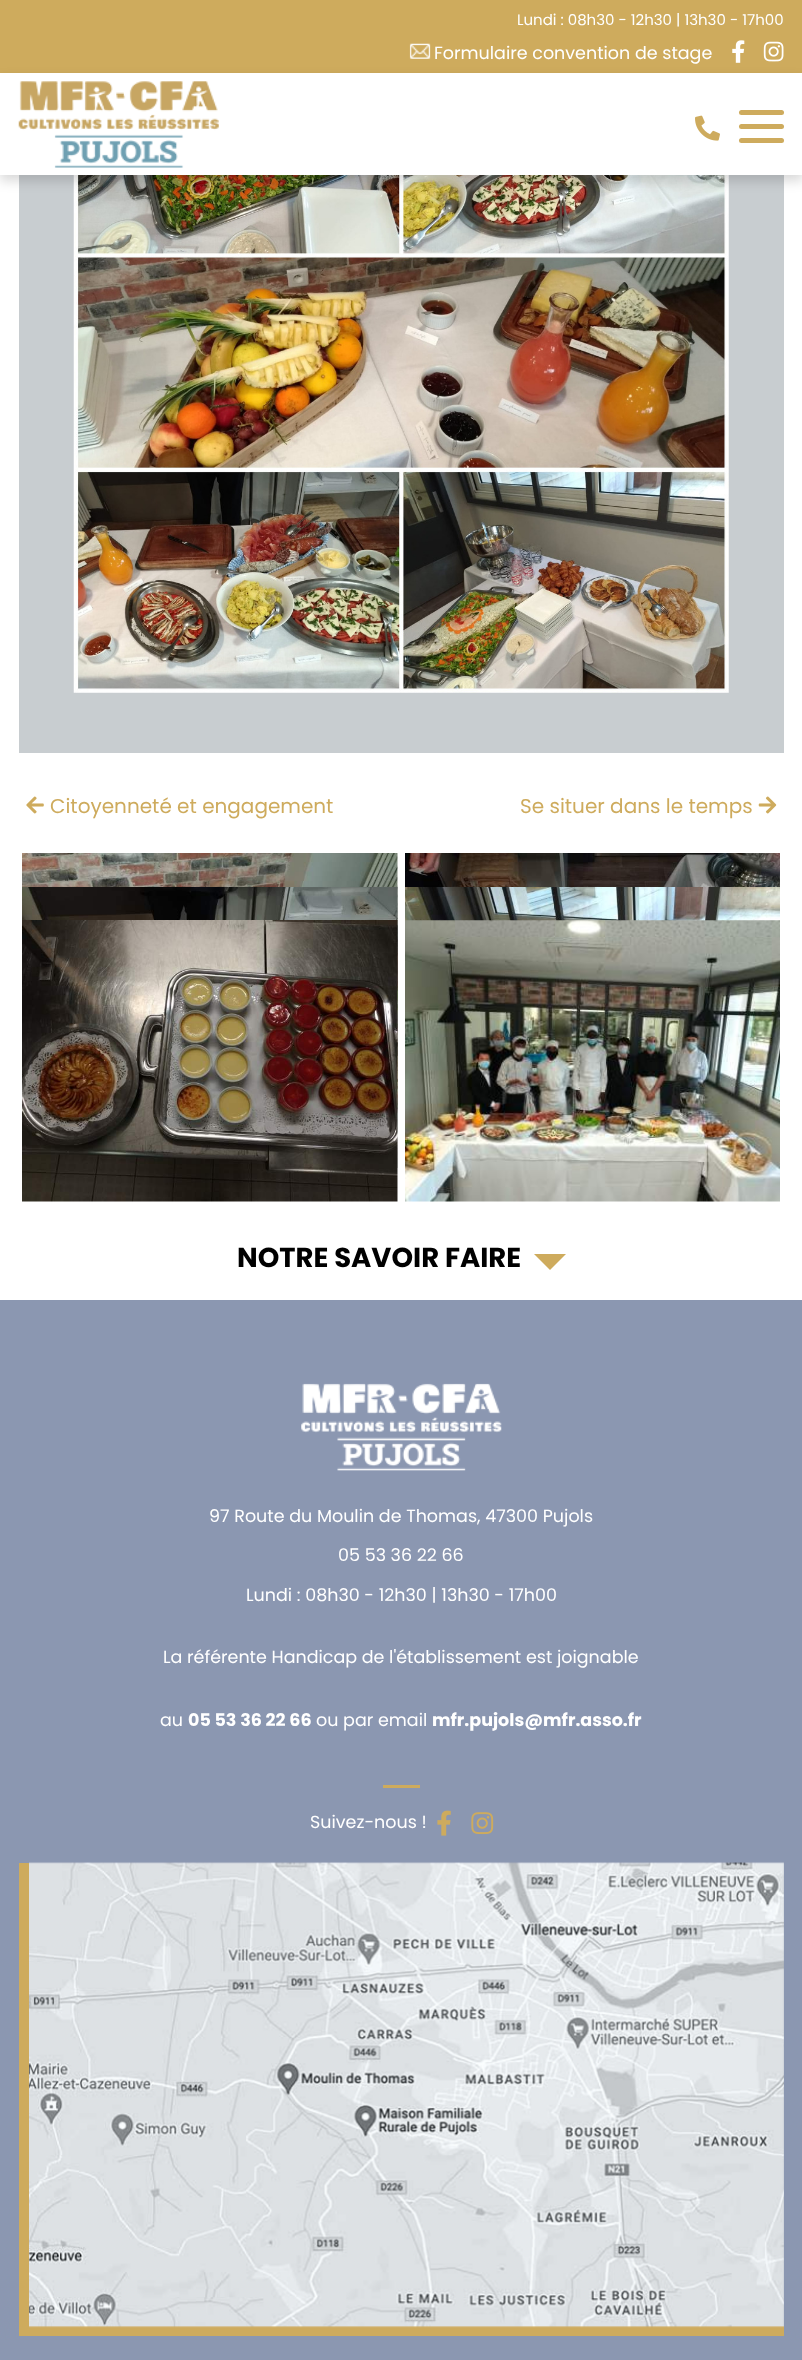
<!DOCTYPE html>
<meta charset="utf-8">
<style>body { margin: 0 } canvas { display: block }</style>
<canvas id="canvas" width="802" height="2360"></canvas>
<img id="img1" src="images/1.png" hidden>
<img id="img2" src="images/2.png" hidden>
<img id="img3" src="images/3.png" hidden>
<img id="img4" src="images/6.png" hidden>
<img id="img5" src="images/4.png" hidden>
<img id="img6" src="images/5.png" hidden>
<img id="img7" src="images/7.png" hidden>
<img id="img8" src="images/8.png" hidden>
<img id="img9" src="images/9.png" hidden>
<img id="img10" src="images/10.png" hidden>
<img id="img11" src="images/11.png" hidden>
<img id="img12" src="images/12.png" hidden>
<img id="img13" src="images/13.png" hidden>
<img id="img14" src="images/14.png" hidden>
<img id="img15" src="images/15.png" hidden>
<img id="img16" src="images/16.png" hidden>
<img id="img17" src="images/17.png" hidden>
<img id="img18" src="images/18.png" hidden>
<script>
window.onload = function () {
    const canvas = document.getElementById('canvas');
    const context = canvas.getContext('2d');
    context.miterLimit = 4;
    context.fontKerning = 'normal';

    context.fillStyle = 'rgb(255, 255, 255)';
    context.fillRect(0, 0, 802, 2360);
    context.fillStyle = 'rgb(206, 171, 93)';
    context.fillRect(0, 0, 802, 73);
    context.drawImage(document.getElementById('img1'), 409, 43, 22, 16);
    context.drawImage(document.getElementById('img2'), 732, 40, 13, 23);
    context.drawImage(document.getElementById('img3'), 763, 41, 21, 21);
    context.fillStyle = 'rgb(200, 205, 208)';
    context.fillRect(19, 175, 765, 578);
    context.drawImage(document.getElementById('img4'), 73, 175, 656, 518);
    context.fillStyle = 'rgba(0, 0, 0, 0.15)';
    context.filter = 'blur(6px)';
    context.beginPath();
    context.rect(0, 79, 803, 102);
    context.fill();
    context.filter = 'none';
    context.fillStyle = 'rgb(255, 255, 255)';
    context.fillRect(0, 73, 802, 102);
    context.drawImage(document.getElementById('img5'), 18, 81, 201, 87);
    context.drawImage(document.getElementById('img6'), 695, 115, 25, 26);
    context.fillStyle = 'rgb(206, 171, 93)';
    context.beginPath();
    context.roundRect(739, 110, 45, 5, 2.5);
    context.fill();
    context.beginPath();
    context.roundRect(739, 124, 45, 5, 2.5);
    context.fill();
    context.beginPath();
    context.roundRect(739, 138, 45, 5, 2.5);
    context.fill();
    context.drawImage(document.getElementById('img7'), 26, 796, 18, 18);
    context.drawImage(document.getElementById('img8'), 758, 796, 19, 18);
    context.drawImage(document.getElementById('img9'), 22, 853, 376, 281);
    context.drawImage(document.getElementById('img10'), 405, 853, 375, 34);
    context.drawImage(document.getElementById('img11'), 22, 887, 376, 281);
    context.drawImage(document.getElementById('img12'), 405, 887, 375, 34);
    context.drawImage(document.getElementById('img13'), 22, 920, 376, 282);
    context.drawImage(document.getElementById('img14'), 405, 920, 375, 282);
    context.beginPath();
    context.moveTo(534, 1254);
    context.lineTo(566, 1254);
    context.lineTo(550, 1270);
    context.closePath();
    context.fill();
    context.fillStyle = 'rgb(139, 151, 177)';
    context.fillRect(0, 1300, 802, 1060);
    context.drawImage(document.getElementById('img15'), 301, 1383, 201, 88);
    context.fillStyle = 'rgb(206, 171, 93)';
    context.fillRect(383, 1785, 37, 3);
    context.drawImage(document.getElementById('img16'), 437, 1810, 14, 26);
    context.drawImage(document.getElementById('img17'), 471, 1812, 23, 23);
    context.fillRect(29, 2326, 755, 10);
    context.fillRect(19, 1863, 10, 473);
    context.drawImage(document.getElementById('img18'), 29, 1862, 755, 466);
    context.font = '15px Poppins';
    context.fillStyle = 'rgb(255, 255, 255)';
    context.fillText('Lundi : 08h30 - 12h30 | 13h30 - 17h00', 517, 25);
    context.font = '17.5px Poppins';
    context.fillText('Formulaire convention de stage', 434, 59);
    context.font = '20px Poppins';
    context.fillStyle = 'rgb(206, 171, 93)';
    context.fillText('Citoyenneté et engagement', 50, 813);
    context.fillText('Se situer dans le temps', 520, 813);
    context.font = 'bold 27.5px Poppins';
    context.fillStyle = 'rgb(0, 0, 0)';
    context.fillText('NOTRE SAVOIR FAIRE', 237, 1267);
    context.font = '17.5px Poppins';
    context.fillStyle = 'rgb(255, 255, 255)';
    context.fillText('97 Route du Moulin de Thomas, 47300 Pujols', 209, 1522);
    context.fillText('05 53 36 22 66', 338, 1561);
    context.fillText('Lundi : 08h30 - 12h30 | 13h30 - 17h00', 246, 1601);
    context.fillText('La référente Handicap de l\'établissement est joignable', 163, 1663);
    context.fillText('au', 160, 1726);
    context.font = 'bold 17.5px Poppins';
    context.fillText('05 53 36 22 66', 188, 1726);
    context.font = '17.5px Poppins';
    context.fillText('ou par email', 316, 1726);
    context.font = 'bold 17.5px Poppins';
    context.fillText('mfr.pujols@mfr.asso.fr', 432, 1726);
    context.font = '17.5px Poppins';
    context.fillText('Suivez-nous !', 310, 1828);
};
</script>
